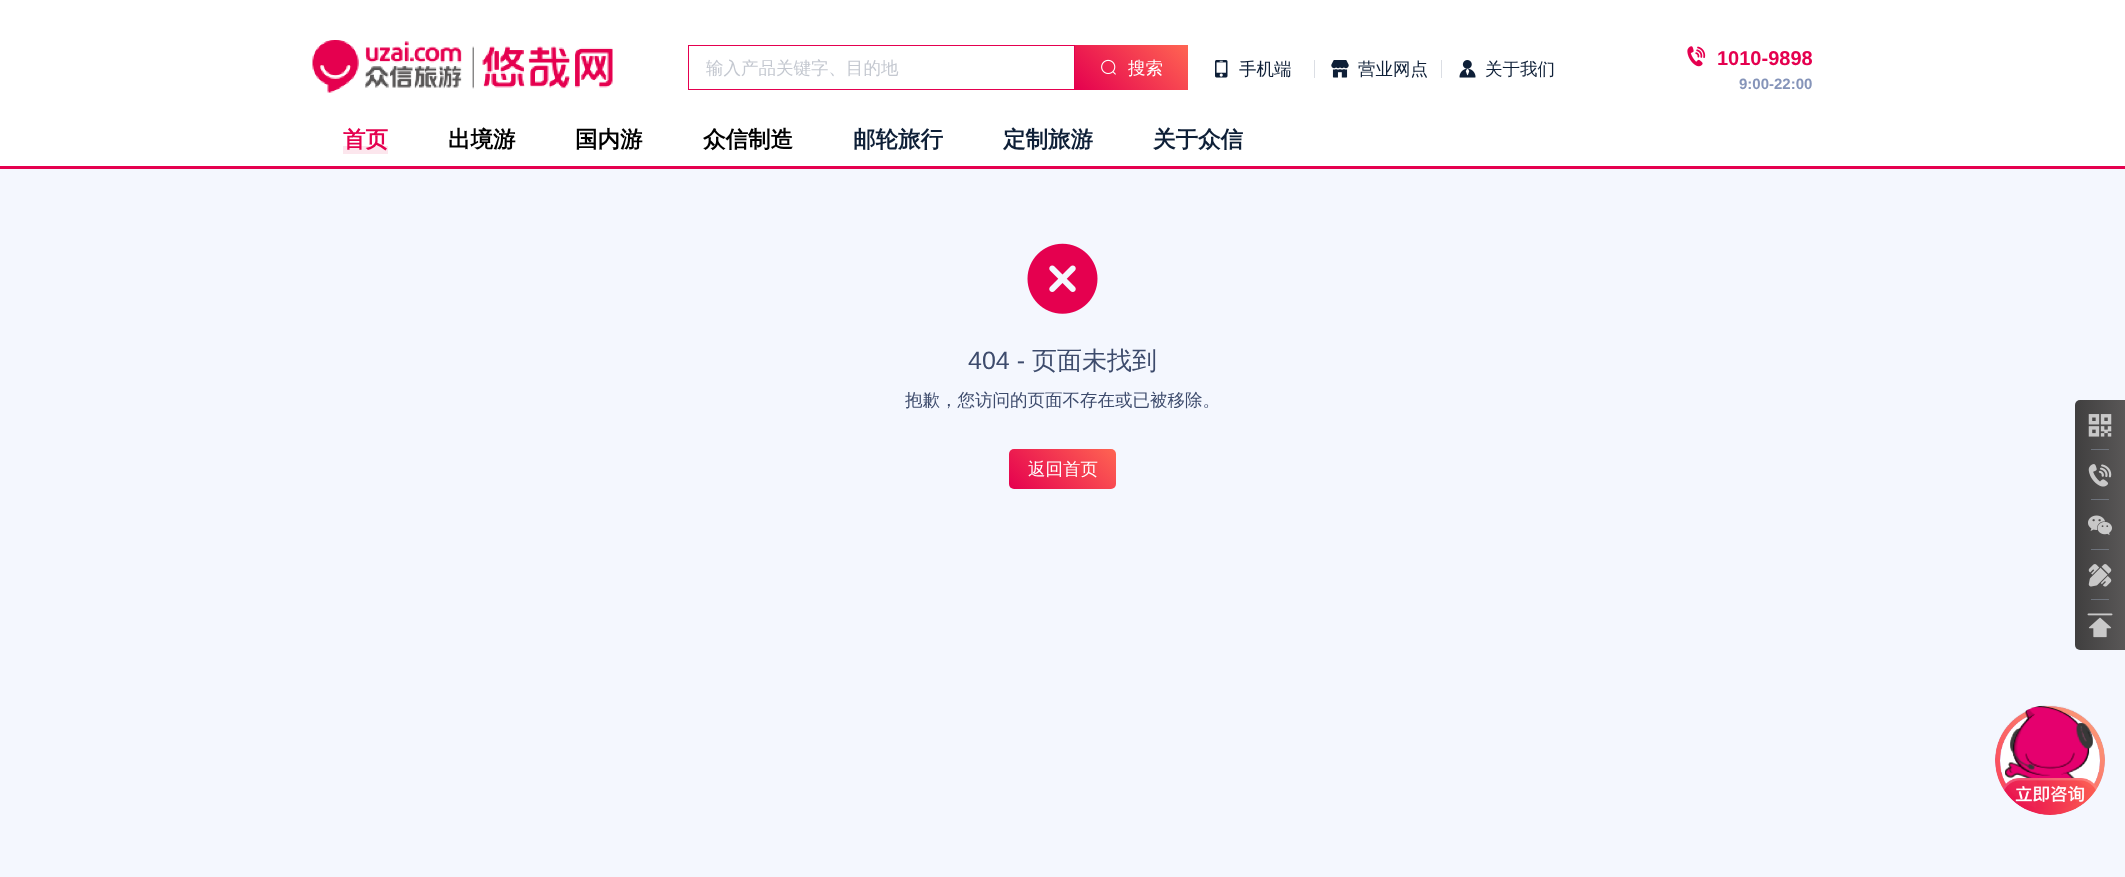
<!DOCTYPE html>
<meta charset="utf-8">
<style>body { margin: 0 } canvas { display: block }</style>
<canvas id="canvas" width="2125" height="877"></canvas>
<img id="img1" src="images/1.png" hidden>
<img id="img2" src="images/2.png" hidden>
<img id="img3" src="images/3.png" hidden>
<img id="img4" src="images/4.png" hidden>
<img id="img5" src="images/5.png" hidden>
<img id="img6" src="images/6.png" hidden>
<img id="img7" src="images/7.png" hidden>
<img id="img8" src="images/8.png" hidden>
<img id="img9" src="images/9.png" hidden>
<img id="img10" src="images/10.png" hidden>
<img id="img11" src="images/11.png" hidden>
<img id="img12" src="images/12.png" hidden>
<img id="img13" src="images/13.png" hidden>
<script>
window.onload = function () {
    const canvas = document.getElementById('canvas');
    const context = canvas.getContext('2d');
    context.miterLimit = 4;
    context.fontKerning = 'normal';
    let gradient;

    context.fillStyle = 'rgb(244, 247, 254)';
    context.fillRect(0, 0, 2125, 877);
    context.fillStyle = 'rgb(255, 255, 255)';
    context.fillRect(0, 0, 2125, 166);
    context.fillStyle = 'rgb(229, 0, 79)';
    context.fillRect(0, 166, 2125, 3);
    context.drawImage(document.getElementById('img1'), 312, 40, 301, 53);
    context.strokeStyle = 'rgb(229, 0, 79)';
    context.strokeRect(688.5, 45.5, 386, 44);
    gradient = context.createLinearGradient(1092, 107, 1171, 28);
    gradient.addColorStop(0, 'rgb(229, 0, 79)');
    gradient.addColorStop(1, 'rgb(255, 101, 82)');
    context.fillStyle = gradient;
    context.fillRect(1075, 45, 113, 45);
    context.drawImage(document.getElementById('img2'), 1101, 59, 15, 16);
    context.drawImage(document.getElementById('img3'), 1215, 60, 13, 18);
    context.fillStyle = 'rgb(219, 222, 228)';
    context.fillRect(1314, 60, 1, 18);
    context.drawImage(document.getElementById('img4'), 1331, 60, 18, 18);
    context.fillRect(1441, 60, 1, 18);
    context.drawImage(document.getElementById('img5'), 1459, 60, 17, 18);
    context.drawImage(document.getElementById('img6'), 1687, 46, 19, 21);
    context.fillStyle = 'rgb(252, 230, 237)';
    context.fillRect(343, 146, 45, 8);
    context.drawImage(document.getElementById('img7'), 1027, 243, 71, 71);
    gradient = context.createLinearGradient(1026, 506, 1099, 432);
    gradient.addColorStop(0, 'rgb(229, 0, 79)');
    gradient.addColorStop(1, 'rgb(255, 101, 82)');
    context.fillStyle = gradient;
    context.beginPath();
    context.roundRect(1009, 449, 107, 40, 5);
    context.fill();
    gradient = context.createLinearGradient(2075, 425, 2125, 425);
    gradient.addColorStop(0, 'rgb(64, 63, 63)');
    gradient.addColorStop(1, 'rgb(89, 87, 87)');
    context.fillStyle = gradient;
    context.beginPath();
    context.roundRect(2075, 400, 50, 50, [5, 0, 0, 0]);
    context.fill();
    gradient = context.createLinearGradient(2075, 425, 2125, 425);
    gradient.addColorStop(0, 'rgb(104, 109, 118)');
    gradient.addColorStop(1, 'rgb(116, 121, 130)');
    context.fillStyle = gradient;
    context.fillRect(2091, 449, 18, 1);
    context.drawImage(document.getElementById('img8'), 2088, 414, 24, 23);
    gradient = context.createLinearGradient(2075, 475, 2125, 475);
    gradient.addColorStop(0, 'rgb(64, 63, 63)');
    gradient.addColorStop(1, 'rgb(89, 87, 87)');
    context.fillStyle = gradient;
    context.fillRect(2075, 450, 50, 50);
    gradient = context.createLinearGradient(2075, 475, 2125, 475);
    gradient.addColorStop(0, 'rgb(104, 109, 118)');
    gradient.addColorStop(1, 'rgb(116, 121, 130)');
    context.fillStyle = gradient;
    context.fillRect(2091, 499, 18, 1);
    context.drawImage(document.getElementById('img9'), 2088, 464, 24, 23);
    gradient = context.createLinearGradient(2075, 525, 2125, 525);
    gradient.addColorStop(0, 'rgb(64, 63, 63)');
    gradient.addColorStop(1, 'rgb(89, 87, 87)');
    context.fillStyle = gradient;
    context.fillRect(2075, 500, 50, 50);
    gradient = context.createLinearGradient(2075, 525, 2125, 525);
    gradient.addColorStop(0, 'rgb(104, 109, 118)');
    gradient.addColorStop(1, 'rgb(116, 121, 130)');
    context.fillStyle = gradient;
    context.fillRect(2091, 549, 18, 1);
    context.drawImage(document.getElementById('img10'), 2088, 515, 24, 20);
    gradient = context.createLinearGradient(2075, 575, 2125, 575);
    gradient.addColorStop(0, 'rgb(64, 63, 63)');
    gradient.addColorStop(1, 'rgb(89, 87, 87)');
    context.fillStyle = gradient;
    context.fillRect(2075, 550, 50, 50);
    gradient = context.createLinearGradient(2075, 575, 2125, 575);
    gradient.addColorStop(0, 'rgb(104, 109, 118)');
    gradient.addColorStop(1, 'rgb(116, 121, 130)');
    context.fillStyle = gradient;
    context.fillRect(2091, 599, 18, 1);
    context.drawImage(document.getElementById('img11'), 2088, 564, 24, 23);
    gradient = context.createLinearGradient(2075, 625, 2125, 625);
    gradient.addColorStop(0, 'rgb(64, 63, 63)');
    gradient.addColorStop(1, 'rgb(89, 87, 87)');
    context.fillStyle = gradient;
    context.beginPath();
    context.roundRect(2075, 600, 50, 50, [0, 0, 0, 5]);
    context.fill();
    context.drawImage(document.getElementById('img12'), 2087, 613, 26, 25);
    context.fillStyle = 'rgb(240, 240, 240)';
    context.beginPath();
    context.arc(2050, 760, 55, 0, 2 * Math.PI);
    context.fill();
    context.drawImage(document.getElementById('img13'), 1995, 705, 110, 110);
    context.font = '500 17.5px WenQuanYi Zen Hei';
    context.fillStyle = 'rgb(196, 200, 208)';
    context.fillText('输入产品关键字、目的地', 706, 74);
    context.fillStyle = 'rgb(255, 255, 255)';
    context.fillText('搜索', 1128, 74);
    context.fillStyle = 'rgb(14, 31, 55)';
    context.fillText('手机端', 1239, 75);
    context.fillText('营业网点', 1358, 75);
    context.fillText('关于我们', 1485, 75);
    context.font = 'bold 20px Liberation Sans';
    context.fillStyle = 'rgb(229, 0, 79)';
    context.fillText('1010-9898', 1717, 65);
    context.font = 'bold 15px Liberation Sans';
    context.fillStyle = 'rgb(133, 148, 185)';
    context.fillText('9:00-22:00', 1739, 89);
    context.font = 'bold 22.5px WenQuanYi Zen Hei';
    context.fillStyle = 'rgb(229, 0, 79)';
    context.fillText('首页', 343, 147);
    context.fillStyle = 'rgb(0, 0, 0)';
    context.fillText('出境游', 448, 147);
    context.fillText('国内游', 575, 147);
    context.fillText('众信制造', 703, 147);
    context.fillStyle = 'rgb(14, 31, 55)';
    context.fillText('邮轮旅行', 853, 147);
    context.fillText('定制旅游', 1003, 147);
    context.fillText('关于众信', 1153, 147);
    context.font = '25px Liberation Sans';
    context.fillStyle = 'rgb(61, 75, 108)';
    context.fillText('404 -', 968, 369);
    context.font = '500 25px WenQuanYi Zen Hei';
    context.fillText('页面未找到', 1032, 369);
    context.font = '500 17.5px WenQuanYi Zen Hei';
    context.fillText('抱歉，您访问的页面不存在或已被移除。', 905, 406);
    context.fillStyle = 'rgb(255, 255, 255)';
    context.fillText('返回首页', 1028, 475);
};
</script>
